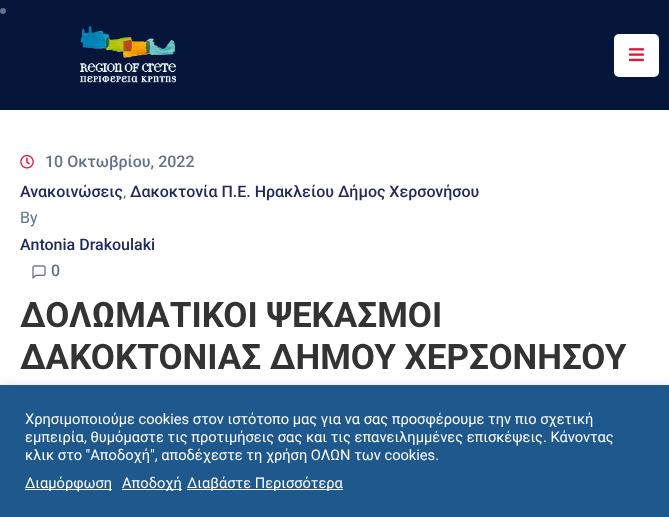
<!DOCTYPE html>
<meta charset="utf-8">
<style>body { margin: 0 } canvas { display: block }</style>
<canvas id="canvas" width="669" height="517"></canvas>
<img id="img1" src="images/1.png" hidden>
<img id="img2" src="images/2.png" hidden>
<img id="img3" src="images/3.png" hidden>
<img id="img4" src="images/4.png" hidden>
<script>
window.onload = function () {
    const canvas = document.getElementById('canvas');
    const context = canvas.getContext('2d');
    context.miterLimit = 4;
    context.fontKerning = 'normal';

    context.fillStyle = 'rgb(255, 255, 255)';
    context.fillRect(0, 0, 669, 517);
    context.fillStyle = 'rgb(6, 22, 58)';
    context.fillRect(0, 0, 669, 110);
    context.drawImage(document.getElementById('img1'), 80, 26, 96, 57);
    context.fillStyle = 'rgb(255, 255, 255)';
    context.beginPath();
    context.roundRect(614, 34, 45, 43, 5);
    context.fill();
    context.drawImage(document.getElementById('img2'), 629, 48, 15, 14);
    context.fillStyle = 'rgb(98, 113, 141)';
    context.beginPath();
    context.arc(3, 11, 3, 0, 2 * Math.PI);
    context.fill();
    context.drawImage(document.getElementById('img3'), 20, 155, 14, 14);
    context.drawImage(document.getElementById('img4'), 32, 265, 14, 14);
    context.fillStyle = 'rgba(172, 171, 171, 0.3)';
    context.filter = 'blur(5px)';
    context.beginPath();
    context.rect(0, 384, 669, 132);
    context.fill();
    context.filter = 'none';
    context.fillStyle = 'rgb(30, 88, 140)';
    context.fillRect(0, 385, 669, 132);
    context.fillStyle = 'rgb(255, 255, 255)';
    context.fillRect(25, 489, 87, 1);
    context.fillRect(122, 489, 60, 1);
    context.fillRect(187, 489, 156, 1);
    context.font = '500 16px Roboto';
    context.fillStyle = 'rgb(98, 113, 141)';
    context.fillText('10 Οκτωβρίου, 2022', 45, 167);
    context.fillStyle = 'rgb(32, 43, 93)';
    context.fillText('Ανακοινώσεις', 20, 197);
    context.font = '500 14px Roboto';
    context.fillStyle = 'rgb(102, 102, 102)';
    context.fillText('‚', 123, 197);
    context.font = '500 16px Roboto';
    context.fillStyle = 'rgb(32, 43, 93)';
    context.fillText('Δακοκτονία Π.Ε. Ηρακλείου Δήμος Χερσονήσου', 130, 197);
    context.font = '16px Roboto';
    context.fillStyle = 'rgb(98, 113, 141)';
    context.fillText('By', 20, 223);
    context.font = '500 16px Roboto';
    context.fillStyle = 'rgb(32, 43, 93)';
    context.fillText('Antonia Drakoulaki', 20, 250);
    context.fillStyle = 'rgb(98, 113, 141)';
    context.fillText('0', 51, 276);
    context.font = 'bold 35px Roboto';
    context.fillStyle = 'rgb(51, 51, 51)';
    context.fillText('ΔΟΛΩΜΑΤΙΚΟΙ ΨΕΚΑΣΜΟΙ', 20, 327);
    context.fillText('ΔΑΚΟΚΤΟΝΙΑΣ ΔΗΜΟΥ ΧΕΡΣΟΝΗΣΟΥ', 20, 369);
    context.font = '14.65px Roboto';
    context.fillStyle = 'rgb(255, 255, 255)';
    context.fillText('Χρησιμοποιούμε cookies στον ιστότοπο μας για να σας προσφέρουμε την πιο σχετική', 25, 424);
    context.fillText('εμπειρία, θυμόμαστε τις προτιμήσεις σας και τις επανειλημμένες επισκέψεις. Κάνοντας', 25, 442);
    context.fillText('κλικ στο "Αποδοχή", αποδέχεστε τη χρήση ΟΛΩΝ των cookies.', 25, 460);
    context.fillText('Διαμόρφωση', 25, 488);
    context.fillText('Αποδοχή', 122, 488);
    context.fillText('Διαβάστε Περισσότερα', 187, 488);
};
</script>
